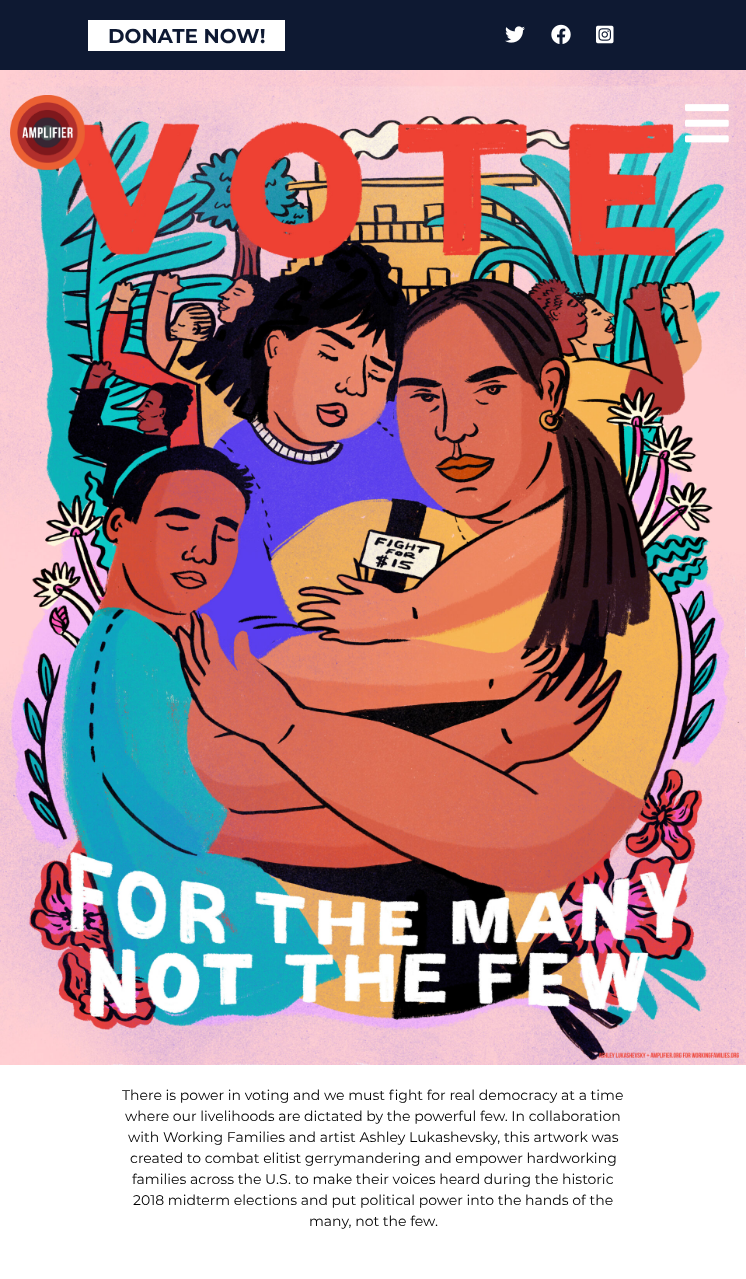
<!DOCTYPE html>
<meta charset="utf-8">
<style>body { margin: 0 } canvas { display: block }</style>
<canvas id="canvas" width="746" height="1279"></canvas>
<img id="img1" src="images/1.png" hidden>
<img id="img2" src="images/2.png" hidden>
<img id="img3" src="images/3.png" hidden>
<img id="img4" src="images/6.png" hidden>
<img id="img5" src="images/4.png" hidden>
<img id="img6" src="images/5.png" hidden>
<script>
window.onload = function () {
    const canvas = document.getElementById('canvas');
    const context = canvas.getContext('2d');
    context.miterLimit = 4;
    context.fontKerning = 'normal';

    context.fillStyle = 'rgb(255, 255, 255)';
    context.fillRect(0, 0, 746, 1279);
    context.fillStyle = 'rgb(14, 25, 50)';
    context.fillRect(0, 0, 746, 70);
    context.fillStyle = 'rgb(255, 255, 255)';
    context.fillRect(88, 20, 197, 31);
    context.drawImage(document.getElementById('img1'), 505, 26, 20, 17);
    context.drawImage(document.getElementById('img2'), 551, 24, 20, 20);
    context.drawImage(document.getElementById('img3'), 596, 25, 18, 19);
    context.drawImage(document.getElementById('img4'), 0, 70, 746, 995);
    context.drawImage(document.getElementById('img5'), 10, 95, 75, 76);
    context.drawImage(document.getElementById('img6'), 685, 104, 44, 39);
    context.font = 'bold 20px Montserrat';
    context.fillStyle = 'rgb(14, 25, 50)';
    context.fillText('DONATE NOW!', 108, 43);
    context.font = '14px Montserrat';
    context.fillStyle = 'rgb(0, 0, 0)';
    context.fillText('There is power in voting and we must fight for real democracy at a time', 122, 1100);
    context.fillText('where our livelihoods are dictated by the powerful few. In collaboration', 125, 1121);
    context.fillText('with Working Families and artist Ashley Lukashevsky, this artwork was', 128, 1142);
    context.fillText('created to combat elitist gerrymandering and empower hardworking', 130, 1163);
    context.fillText('families across the U.S. to make their voices heard during the historic', 132, 1184);
    context.fillText('2018 midterm elections and put political power into the hands of the', 133, 1205);
    context.fillText('many, not the few.', 309, 1226);
};
</script>
